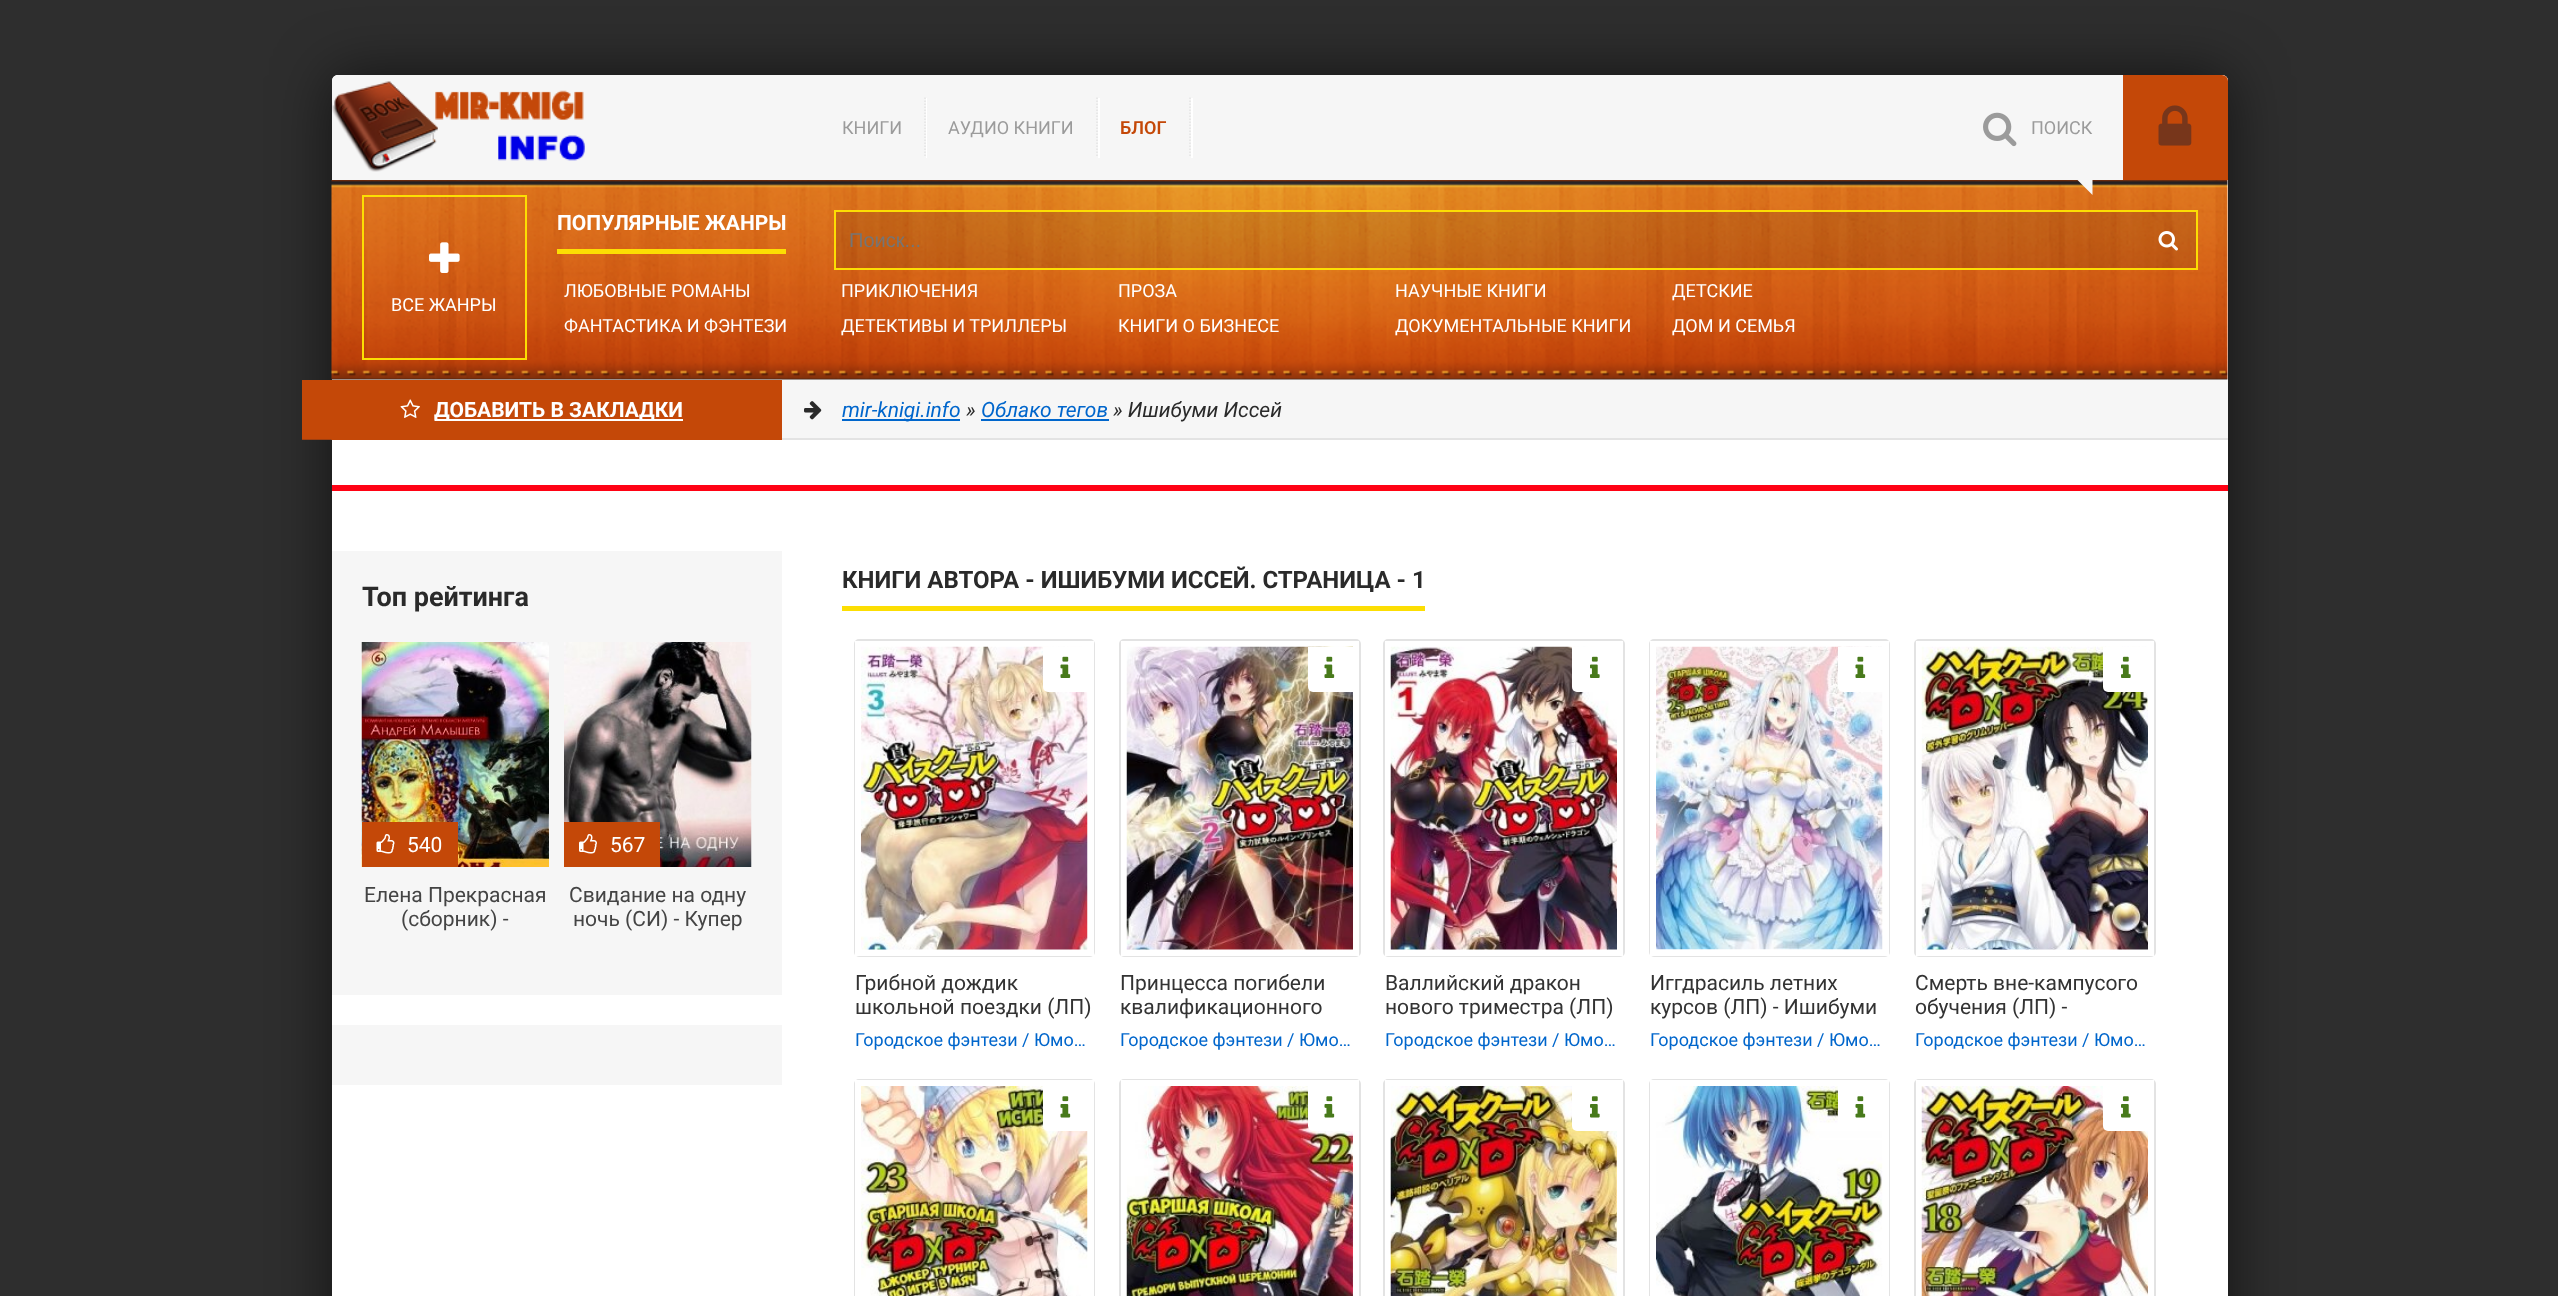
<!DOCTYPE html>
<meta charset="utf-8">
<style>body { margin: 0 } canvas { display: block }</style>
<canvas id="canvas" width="2558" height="1296"></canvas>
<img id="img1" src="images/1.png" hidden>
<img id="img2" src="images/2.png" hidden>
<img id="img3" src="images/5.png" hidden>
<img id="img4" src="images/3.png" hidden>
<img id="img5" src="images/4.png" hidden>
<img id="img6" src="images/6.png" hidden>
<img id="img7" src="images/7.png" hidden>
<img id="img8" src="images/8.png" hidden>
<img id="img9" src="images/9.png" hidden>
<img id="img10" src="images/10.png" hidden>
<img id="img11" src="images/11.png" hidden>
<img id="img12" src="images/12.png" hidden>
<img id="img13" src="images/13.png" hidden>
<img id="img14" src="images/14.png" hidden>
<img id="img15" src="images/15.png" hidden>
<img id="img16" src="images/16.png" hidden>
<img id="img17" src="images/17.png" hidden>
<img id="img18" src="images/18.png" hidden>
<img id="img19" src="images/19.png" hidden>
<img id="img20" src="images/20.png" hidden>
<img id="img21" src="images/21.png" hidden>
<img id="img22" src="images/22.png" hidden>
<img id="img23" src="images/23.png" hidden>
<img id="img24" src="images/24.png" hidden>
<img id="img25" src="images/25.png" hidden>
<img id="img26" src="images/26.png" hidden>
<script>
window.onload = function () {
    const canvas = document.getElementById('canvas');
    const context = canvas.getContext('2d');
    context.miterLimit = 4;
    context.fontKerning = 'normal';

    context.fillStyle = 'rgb(46, 46, 46)';
    context.fillRect(0, 0, 2558, 1296);
    context.fillStyle = 'rgba(0, 0, 0, 0.6)';
    context.filter = 'blur(30px)';
    context.beginPath();
    context.roundRect(332, 75, 1896, 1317, 6);
    context.fill();
    context.filter = 'none';
    context.fillStyle = 'rgb(255, 255, 255)';
    context.beginPath();
    context.moveTo(338, 75);
    context.lineTo(2222, 75);
    context.bezierCurveTo(2225.5, 75, 2228, 77.5, 2228, 81);
    context.lineTo(2228, 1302);
    context.lineTo(332, 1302);
    context.lineTo(332, 81);
    context.bezierCurveTo(332, 77.5, 334.5, 75, 338, 75);
    context.closePath();
    context.fill();
    context.fillStyle = 'rgb(246, 246, 246)';
    context.beginPath();
    context.roundRect(332, 75, 1896, 105, [6, 6, 0, 0]);
    context.fill();
    context.drawImage(document.getElementById('img1'), 332, 81, 253, 91);
    context.fillStyle = 'rgb(255, 255, 255)';
    context.beginPath();
    context.moveTo(821, 158);
    context.lineTo(927, 158);
    context.lineTo(927, 98);
    context.lineTo(926, 98);
    context.lineTo(926, 158);
    context.closePath();
    context.fill();
    context.beginPath();
    context.moveTo(925, 97.5);
    context.lineTo(925, 157.5);
    context.strokeStyle = 'rgb(227, 227, 227)';
    context.lineWidth = 1.5;
    context.setLineDash([1.5, 1.5]);
    context.stroke();
    context.beginPath();
    context.moveTo(927, 158);
    context.lineTo(1100, 158);
    context.lineTo(1100, 98);
    context.lineTo(1098, 98);
    context.lineTo(1098, 158);
    context.closePath();
    context.fill();
    context.beginPath();
    context.moveTo(1097, 97.5);
    context.lineTo(1097, 157.5);
    context.stroke();
    context.beginPath();
    context.moveTo(1100, 158);
    context.lineTo(1193, 158);
    context.lineTo(1193, 98);
    context.lineTo(1191, 98);
    context.lineTo(1191, 158);
    context.closePath();
    context.fill();
    context.beginPath();
    context.moveTo(1190, 97.5);
    context.lineTo(1190, 157.5);
    context.stroke();
    context.drawImage(document.getElementById('img2'), 1983, 112, 34, 35);
    context.drawImage(document.getElementById('img3'), 331, 180, 1897, 200);
    context.fillStyle = 'rgb(246, 246, 246)';
    context.beginPath();
    context.moveTo(2092.5, 180);
    context.lineTo(2092.5, 195);
    context.lineTo(2077.5, 180);
    context.closePath();
    context.fill();
    context.fillStyle = 'rgb(196, 72, 8)';
    context.beginPath();
    context.roundRect(2123, 75, 105, 105, [0, 6, 0, 0]);
    context.fill();
    context.drawImage(document.getElementById('img4'), 2158, 105, 34, 41);
    context.fillStyle = 'rgba(0, 0, 0, 0.1)';
    context.beginPath();
    context.rect(835, 211, 1362, 58);
    context.fill();
    context.strokeStyle = 'rgb(252, 222, 3)';
    context.lineWidth = 2;
    context.setLineDash([]);
    context.stroke();
    context.drawImage(document.getElementById('img5'), 2158, 231, 20, 20);
    context.fillStyle = 'rgb(252, 222, 3)';
    context.fillRect(557, 249, 229, 5);
    context.strokeRect(363, 196, 163, 163);
    context.drawImage(document.getElementById('img6'), 429, 242, 31, 31);
    context.fillStyle = 'rgb(246, 246, 246)';
    context.fillRect(782, 380, 1446, 58);
    context.fillStyle = 'rgb(227, 227, 227)';
    context.fillRect(782, 438, 1446, 2);
    context.fillStyle = 'rgb(196, 72, 8)';
    context.fillRect(302, 380, 480, 60);
    context.drawImage(document.getElementById('img7'), 400, 399, 20, 19);
    context.fillStyle = 'rgb(255, 255, 255)';
    context.fillRect(435, 419, 248, 2);
    context.save();
    context.beginPath();
    context.rect(302, 380, 480, 60);
    context.clip();
    context.fillStyle = 'rgb(119, 54, 27)';
    context.beginPath();
    context.moveTo(331.5, 439.5);
    context.lineTo(331.5, 469.5);
    context.lineTo(301.5, 439.5);
    context.closePath();
    context.fill();
    context.restore();
    context.drawImage(document.getElementById('img8'), 804, 401, 18, 19);
    context.fillStyle = 'rgb(0, 102, 204)';
    context.fillRect(842, 419, 118, 2);
    context.fillRect(981, 419, 128, 2);
    context.fillStyle = 'rgb(255, 2, 20)';
    context.fillRect(332, 485, 1896, 6);
    context.fillStyle = 'rgb(246, 246, 246)';
    context.fillRect(332, 551, 450, 444);
    context.drawImage(document.getElementById('img9'), 361, 642, 188, 225);
    context.fillStyle = 'rgb(196, 72, 8)';
    context.fillRect(362, 822, 96, 45);
    context.drawImage(document.getElementById('img10'), 376, 834, 19, 20);
    context.drawImage(document.getElementById('img11'), 564, 642, 188, 225);
    context.fillRect(564, 822, 96, 45);
    context.drawImage(document.getElementById('img12'), 579, 834, 18, 20);
    context.fillStyle = 'rgb(246, 246, 246)';
    context.fillRect(332, 1025, 450, 60);
    context.fillStyle = 'rgb(252, 222, 3)';
    context.fillRect(842, 606, 583, 5);
    context.beginPath();
    context.roundRect(855, 640, 239, 316, 4);
    context.strokeStyle = 'rgb(227, 227, 227)';
    context.stroke();
    context.beginPath();
    context.rect(858, 644, 233, 309);
    context.strokeStyle = 'rgb(255, 255, 255)';
    context.lineWidth = 6;
    context.stroke();
    context.drawImage(document.getElementById('img13'), 861, 646, 227, 304);
    context.fillStyle = 'rgb(255, 255, 255)';
    context.beginPath();
    context.roundRect(1043, 647, 45, 45, [0, 0, 0, 5]);
    context.fill();
    context.drawImage(document.getElementById('img14'), 1060, 656, 11, 22);
    context.beginPath();
    context.roundRect(1120, 640, 240, 316, 4);
    context.strokeStyle = 'rgb(227, 227, 227)';
    context.lineWidth = 2;
    context.stroke();
    context.beginPath();
    context.rect(1124, 644, 232, 309);
    context.strokeStyle = 'rgb(255, 255, 255)';
    context.lineWidth = 6;
    context.stroke();
    context.drawImage(document.getElementById('img15'), 1126, 646, 227, 304);
    context.beginPath();
    context.roundRect(1308, 647, 45, 45, [0, 0, 0, 5]);
    context.fill();
    context.drawImage(document.getElementById('img14'), 1324, 656, 11, 22);
    context.beginPath();
    context.roundRect(1384, 640, 240, 316, 4);
    context.strokeStyle = 'rgb(227, 227, 227)';
    context.lineWidth = 2;
    context.stroke();
    context.beginPath();
    context.rect(1388, 644, 232, 309);
    context.strokeStyle = 'rgb(255, 255, 255)';
    context.lineWidth = 6;
    context.stroke();
    context.drawImage(document.getElementById('img16'), 1390, 646, 227, 304);
    context.beginPath();
    context.roundRect(1572, 647, 45, 45, [0, 0, 0, 5]);
    context.fill();
    context.drawImage(document.getElementById('img17'), 1590, 656, 10, 22);
    context.beginPath();
    context.roundRect(1650, 640, 239, 316, 4);
    context.strokeStyle = 'rgb(227, 227, 227)';
    context.lineWidth = 2;
    context.stroke();
    context.beginPath();
    context.rect(1653, 644, 233, 309);
    context.strokeStyle = 'rgb(255, 255, 255)';
    context.lineWidth = 6;
    context.stroke();
    context.drawImage(document.getElementById('img18'), 1656, 646, 227, 304);
    context.beginPath();
    context.roundRect(1838, 647, 45, 45, [0, 0, 0, 5]);
    context.fill();
    context.drawImage(document.getElementById('img14'), 1855, 656, 11, 22);
    context.beginPath();
    context.roundRect(1915, 640, 240, 316, 4);
    context.strokeStyle = 'rgb(227, 227, 227)';
    context.lineWidth = 2;
    context.stroke();
    context.beginPath();
    context.rect(1919, 644, 232, 309);
    context.strokeStyle = 'rgb(255, 255, 255)';
    context.lineWidth = 6;
    context.stroke();
    context.drawImage(document.getElementById('img19'), 1921, 646, 227, 304);
    context.beginPath();
    context.roundRect(2103, 647, 45, 45, [0, 0, 0, 5]);
    context.fill();
    context.drawImage(document.getElementById('img17'), 2121, 656, 10, 22);
    context.beginPath();
    context.roundRect(855, 1080, 239, 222, 4);
    context.strokeStyle = 'rgb(227, 227, 227)';
    context.lineWidth = 2;
    context.stroke();
    context.beginPath();
    context.rect(858, 1083, 233, 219);
    context.strokeStyle = 'rgb(255, 255, 255)';
    context.lineWidth = 6;
    context.stroke();
    context.drawImage(document.getElementById('img20'), 861, 1086, 227, 210);
    context.beginPath();
    context.roundRect(1043, 1086, 45, 45, [0, 0, 0, 5]);
    context.fill();
    context.drawImage(document.getElementById('img21'), 1060, 1096, 11, 22);
    context.beginPath();
    context.roundRect(1120, 1080, 240, 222, 4);
    context.strokeStyle = 'rgb(227, 227, 227)';
    context.lineWidth = 2;
    context.stroke();
    context.beginPath();
    context.rect(1124, 1083, 232, 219);
    context.strokeStyle = 'rgb(255, 255, 255)';
    context.lineWidth = 6;
    context.stroke();
    context.drawImage(document.getElementById('img22'), 1126, 1086, 227, 210);
    context.beginPath();
    context.roundRect(1308, 1086, 45, 45, [0, 0, 0, 5]);
    context.fill();
    context.drawImage(document.getElementById('img21'), 1324, 1096, 11, 22);
    context.beginPath();
    context.roundRect(1384, 1080, 240, 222, 4);
    context.strokeStyle = 'rgb(227, 227, 227)';
    context.lineWidth = 2;
    context.stroke();
    context.beginPath();
    context.rect(1388, 1083, 232, 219);
    context.strokeStyle = 'rgb(255, 255, 255)';
    context.lineWidth = 6;
    context.stroke();
    context.drawImage(document.getElementById('img23'), 1390, 1086, 227, 210);
    context.beginPath();
    context.roundRect(1572, 1086, 45, 45, [0, 0, 0, 5]);
    context.fill();
    context.drawImage(document.getElementById('img24'), 1590, 1096, 10, 22);
    context.beginPath();
    context.roundRect(1650, 1080, 239, 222, 4);
    context.strokeStyle = 'rgb(227, 227, 227)';
    context.lineWidth = 2;
    context.stroke();
    context.beginPath();
    context.rect(1653, 1083, 233, 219);
    context.strokeStyle = 'rgb(255, 255, 255)';
    context.lineWidth = 6;
    context.stroke();
    context.drawImage(document.getElementById('img25'), 1656, 1086, 227, 210);
    context.beginPath();
    context.roundRect(1838, 1086, 45, 45, [0, 0, 0, 5]);
    context.fill();
    context.drawImage(document.getElementById('img21'), 1855, 1096, 11, 22);
    context.beginPath();
    context.roundRect(1915, 1080, 240, 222, 4);
    context.strokeStyle = 'rgb(227, 227, 227)';
    context.lineWidth = 2;
    context.stroke();
    context.beginPath();
    context.rect(1919, 1083, 232, 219);
    context.strokeStyle = 'rgb(255, 255, 255)';
    context.lineWidth = 6;
    context.stroke();
    context.drawImage(document.getElementById('img26'), 1921, 1086, 227, 210);
    context.beginPath();
    context.roundRect(2103, 1086, 45, 45, [0, 0, 0, 5]);
    context.fill();
    context.drawImage(document.getElementById('img24'), 2121, 1096, 10, 22);
    context.font = '18px Roboto';
    context.fillStyle = 'rgb(155, 155, 155)';
    context.fillText('КНИГИ', 842, 134);
    context.fillText('АУДИО КНИГИ', 948, 134);
    context.font = '600 18px Roboto';
    context.fillStyle = 'rgb(196, 72, 8)';
    context.fillText('БЛОГ', 1120, 134);
    context.font = '18px Roboto';
    context.fillStyle = 'rgb(155, 155, 155)';
    context.fillText('ПОИСК', 2031, 134);
    context.font = '20px Liberation Sans';
    context.fillStyle = 'rgb(117, 117, 117)';
    context.fillText('Поиск...', 849, 247);
    context.font = 'bold 21px Roboto';
    context.fillStyle = 'rgb(255, 255, 255)';
    context.fillText('ПОПУЛЯРНЫЕ ЖАНРЫ', 557, 230);
    context.font = '18px Roboto';
    context.fillText('ВСЕ ЖАНРЫ', 391, 311);
    context.fillText('ЛЮБОВНЫЕ РОМАНЫ', 564, 297);
    context.fillText('ПРИКЛЮЧЕНИЯ', 841, 297);
    context.fillText('ПРОЗА', 1118, 297);
    context.fillText('НАУЧНЫЕ КНИГИ', 1395, 297);
    context.fillText('ДЕТСКИЕ', 1672, 297);
    context.fillText('ФАНТАСТИКА И ФЭНТЕЗИ', 564, 332);
    context.fillText('ДЕТЕКТИВЫ И ТРИЛЛЕРЫ', 841, 332);
    context.fillText('КНИГИ О БИЗНЕСЕ', 1118, 332);
    context.fillText('ДОКУМЕНТАЛЬНЫЕ КНИГИ', 1395, 332);
    context.fillText('ДОМ И СЕМЬЯ', 1672, 332);
    context.font = 'bold 21px Roboto';
    context.fillText('ДОБАВИТЬ В ЗАКЛАДКИ', 434, 417);
    context.font = 'italic 21px Roboto';
    context.fillStyle = 'rgb(0, 102, 204)';
    context.fillText('mir-knigi.info', 842, 417);
    context.fillStyle = 'rgb(42, 42, 42)';
    context.fillText('»', 966, 417);
    context.fillStyle = 'rgb(0, 102, 204)';
    context.fillText('Облако тегов', 981, 417);
    context.fillStyle = 'rgb(42, 42, 42)';
    context.fillText('» Ишибуми Иссей', 1113, 417);
    context.font = 'bold 27px Roboto';
    context.fillText('Топ рейтинга', 362, 606);
    context.font = '21px Roboto';
    context.fillStyle = 'rgb(255, 255, 255)';
    context.fillText('540', 407, 852);
    context.fillStyle = 'rgb(68, 68, 68)';
    context.fillText('Елена Прекрасная', 364, 902);
    context.fillText('(сборник) -', 401, 926);
    context.fillStyle = 'rgb(255, 255, 255)';
    context.fillText('567', 610, 852);
    context.fillStyle = 'rgb(68, 68, 68)';
    context.fillText('Свидание на одну', 569, 902);
    context.fillText('ночь (СИ) - Купер', 573, 926);
    context.font = 'bold 24px Roboto';
    context.fillStyle = 'rgb(42, 42, 42)';
    context.fillText('КНИГИ АВТОРА - ИШИБУМИ ИССЕЙ. СТРАНИЦА - 1', 842, 588);
    context.font = '21px Roboto';
    context.fillStyle = 'rgb(51, 51, 51)';
    context.fillText('Грибной дождик', 855, 990);
    context.fillText('школьной поездки (ЛП)', 855, 1014);
    context.font = '18px Roboto';
    context.fillStyle = 'rgb(0, 102, 204)';
    context.fillText('Городское фэнтези / Юмо…', 855, 1046);
    context.font = '21px Roboto';
    context.fillStyle = 'rgb(51, 51, 51)';
    context.fillText('Принцесса погибели', 1120, 990);
    context.fillText('квалификационного', 1120, 1014);
    context.font = '18px Roboto';
    context.fillStyle = 'rgb(0, 102, 204)';
    context.fillText('Городское фэнтези / Юмо…', 1120, 1046);
    context.font = '21px Roboto';
    context.fillStyle = 'rgb(51, 51, 51)';
    context.fillText('Валлийский дракон', 1385, 990);
    context.fillText('нового триместра (ЛП)', 1385, 1014);
    context.font = '18px Roboto';
    context.fillStyle = 'rgb(0, 102, 204)';
    context.fillText('Городское фэнтези / Юмо…', 1385, 1046);
    context.font = '21px Roboto';
    context.fillStyle = 'rgb(51, 51, 51)';
    context.fillText('Иггдрасиль летних', 1650, 990);
    context.fillText('курсов (ЛП) - Ишибуми', 1650, 1014);
    context.font = '18px Roboto';
    context.fillStyle = 'rgb(0, 102, 204)';
    context.fillText('Городское фэнтези / Юмо…', 1650, 1046);
    context.font = '21px Roboto';
    context.fillStyle = 'rgb(51, 51, 51)';
    context.fillText('Смерть вне-кампусого', 1915, 990);
    context.fillText('обучения (ЛП) -', 1915, 1014);
    context.font = '18px Roboto';
    context.fillStyle = 'rgb(0, 102, 204)';
    context.fillText('Городское фэнтези / Юмо…', 1915, 1046);
};
</script>
